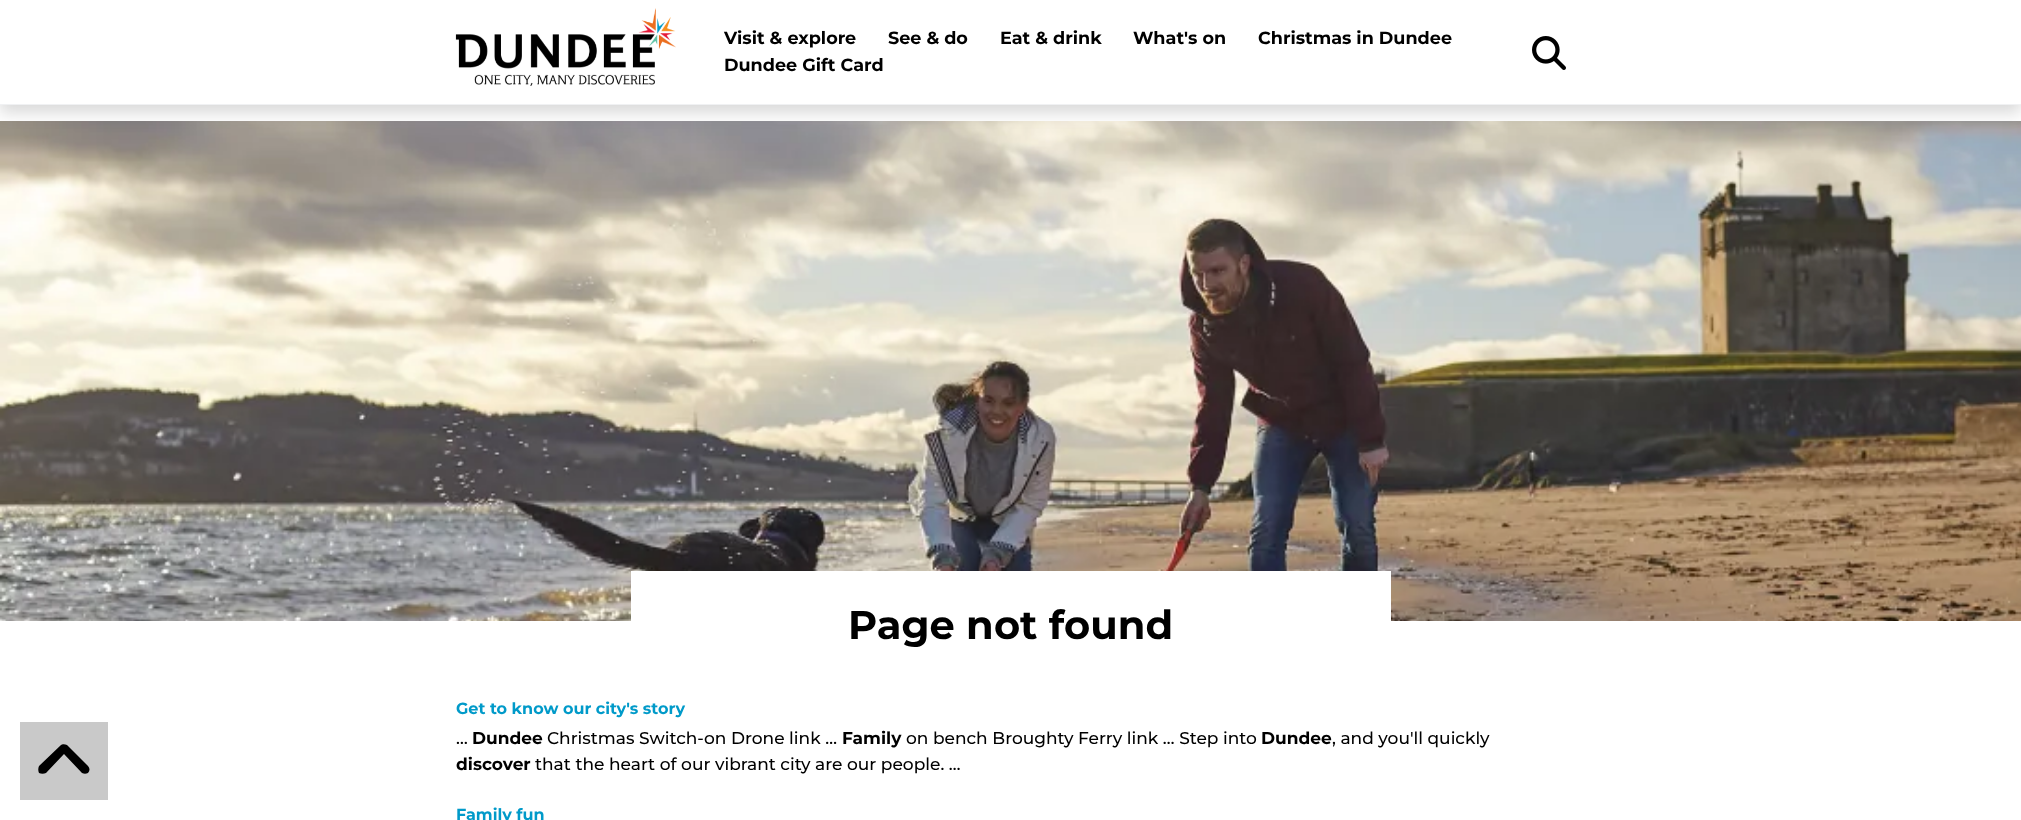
<!DOCTYPE html>
<meta charset="utf-8">
<style>body { margin: 0 } canvas { display: block }</style>
<canvas id="canvas" width="2021" height="820"></canvas>
<img id="img1" src="images/3.png" hidden>
<img id="img2" src="images/1.png" hidden>
<img id="img3" src="images/2.png" hidden>
<script>
window.onload = function () {
    const canvas = document.getElementById('canvas');
    const context = canvas.getContext('2d');
    context.miterLimit = 4;
    context.fontKerning = 'normal';

    context.fillStyle = 'rgb(255, 255, 255)';
    context.fillRect(0, 0, 2021, 820);
    context.fillStyle = 'rgb(201, 201, 201)';
    context.fillRect(20, 722, 88, 78);
    context.fillStyle = 'rgb(0, 0, 0)';
    context.beginPath();
    context.moveTo(61, 745);
    context.bezierCurveTo(62, 744, 65, 744, 67, 745);
    context.lineTo(88, 766);
    context.bezierCurveTo(90, 768, 90, 771, 88, 773);
    context.bezierCurveTo(86, 774, 84, 774, 82, 773);
    context.lineTo(64, 754);
    context.lineTo(46, 773);
    context.bezierCurveTo(44, 774, 41, 774, 39, 773);
    context.bezierCurveTo(38, 771, 38, 768, 39, 766);
    context.closePath();
    context.fill();
    context.drawImage(document.getElementById('img1'), 0, 121, 2021, 500);
    context.fillStyle = 'rgba(0, 0, 0, 0.15)';
    context.filter = 'blur(8px)';
    context.beginPath();
    context.rect(0, 8, 2021, 105);
    context.fill();
    context.filter = 'none';
    context.fillStyle = 'rgb(255, 255, 255)';
    context.fillRect(0, 0, 2021, 104);
    context.fillStyle = 'rgb(240, 241, 243)';
    context.fillRect(0, 104, 2021, 1);
    context.drawImage(document.getElementById('img2'), 455, 8, 221, 78);
    context.drawImage(document.getElementById('img3'), 1532, 36, 34, 34);
    context.fillStyle = 'rgb(255, 255, 255)';
    context.fillRect(631, 571, 760, 50);
    context.font = 'bold 17.6px Montserrat';
    context.fillStyle = 'rgb(0, 0, 0)';
    context.fillText('Visit & explore', 724, 44);
    context.fillText('See & do', 888, 44);
    context.fillText('Eat & drink', 1000, 44);
    context.fillText('What\'s on', 1133, 44);
    context.fillText('Christmas in Dundee', 1258, 44);
    context.fillText('Dundee Gift Card', 724, 71);
    context.font = 'bold 40px Montserrat';
    context.fillText('Page not found', 848, 639);
    context.font = 'bold 16px Montserrat';
    context.fillStyle = 'rgb(0, 154, 201)';
    context.fillText('Get to know our city\'s story', 456, 714);
    context.font = '500 17px Montserrat';
    context.fillStyle = 'rgb(0, 0, 0)';
    context.fillText('…', 456, 744);
    context.font = 'bold 17px Montserrat';
    context.fillText('Dundee', 472, 744);
    context.font = '500 17px Montserrat';
    context.fillText('Christmas Switch-on Drone link …', 547, 744);
    context.font = 'bold 17px Montserrat';
    context.fillText('Family', 842, 744);
    context.font = '500 17px Montserrat';
    context.fillText('on bench Broughty Ferry link … Step into', 906, 744);
    context.font = 'bold 17px Montserrat';
    context.fillText('Dundee', 1261, 744);
    context.font = '500 17px Montserrat';
    context.fillText(', and you\'ll quickly', 1332, 744);
    context.font = 'bold 17px Montserrat';
    context.fillText('discover', 456, 770);
    context.font = '500 17px Montserrat';
    context.fillText('that the heart of our vibrant city are our people. …', 535, 770);
    context.font = 'bold 16px Montserrat';
    context.fillStyle = 'rgb(0, 154, 201)';
    context.fillText('Family fun', 456, 820);
};
</script>
